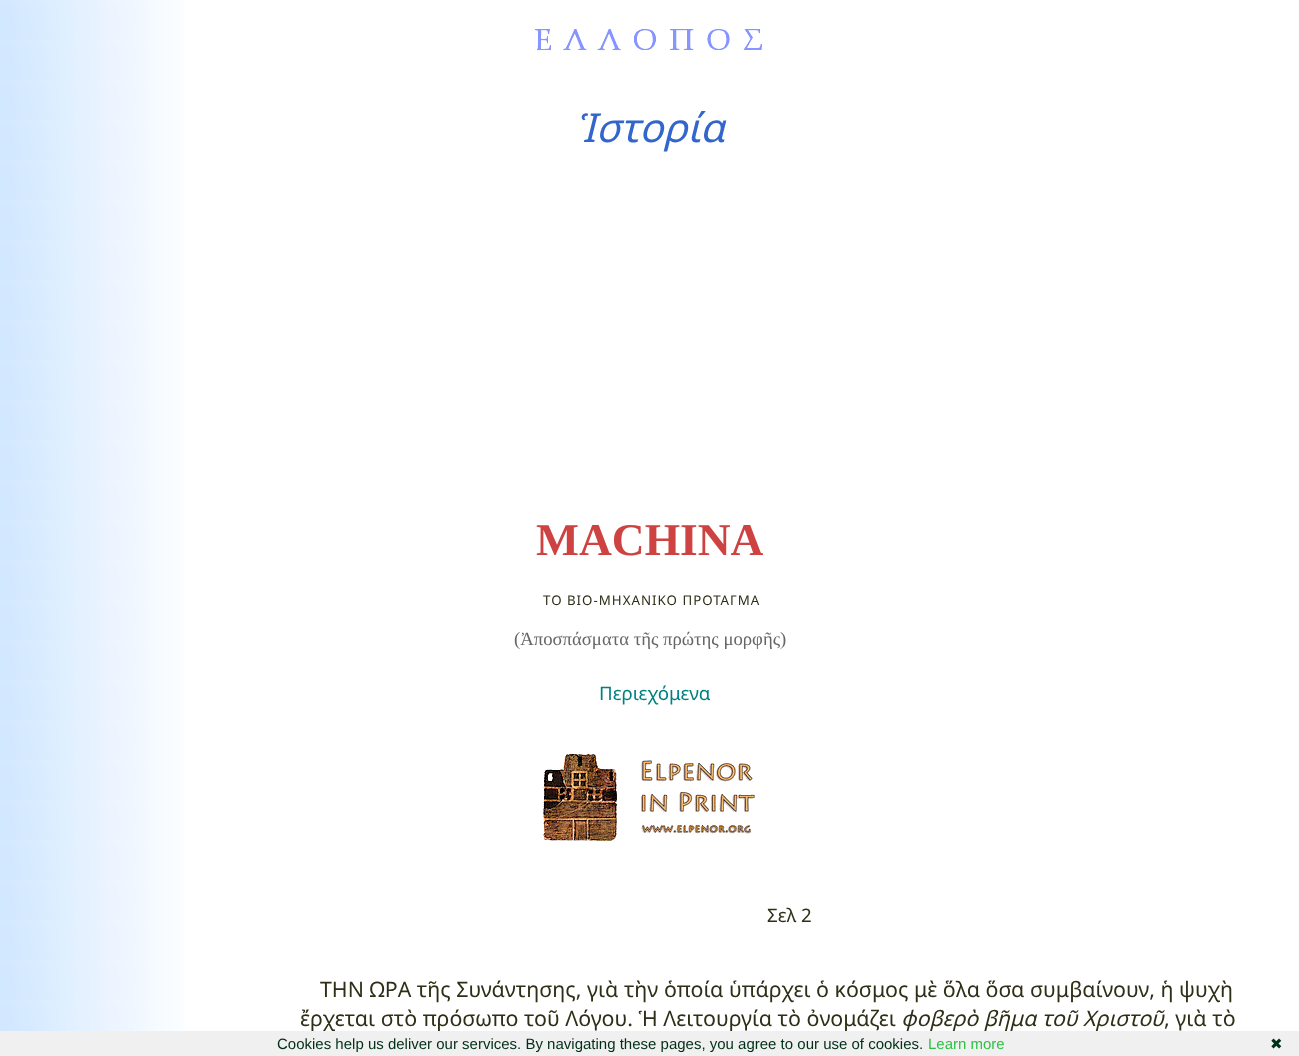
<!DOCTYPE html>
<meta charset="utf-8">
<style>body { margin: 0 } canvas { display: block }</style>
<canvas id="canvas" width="1299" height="1056"></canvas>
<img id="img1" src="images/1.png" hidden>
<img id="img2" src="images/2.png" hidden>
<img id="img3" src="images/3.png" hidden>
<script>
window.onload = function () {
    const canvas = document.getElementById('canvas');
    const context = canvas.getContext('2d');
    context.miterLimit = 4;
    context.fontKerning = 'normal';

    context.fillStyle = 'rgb(255, 255, 255)';
    context.fillRect(0, 0, 1299, 1056);
    context.drawImage(document.getElementById('img1'), 0, 0, 184, 1031);
    context.drawImage(document.getElementById('img2'), 535, 29, 227, 21);
    context.drawImage(document.getElementById('img3'), 543, 754, 212, 87);
    context.font = 'italic 40px Noto Sans';
    context.fillStyle = 'rgb(51, 102, 204)';
    context.fillText('Ἱστορία', 575, 142);
    context.font = 'bold 45.5px Liberation Serif';
    context.fillStyle = 'rgb(206, 66, 66)';
    context.fillText('MACHINA', 536, 555);
    context.letterSpacing = '1px';
    context.font = '13.3px Noto Sans';
    context.fillStyle = 'rgb(47, 47, 23)';
    context.fillText('ΤΟ ΒΙΟ-ΜΗΧΑΝΙΚΟ ΠΡΟΤΑΓΜΑ', 543, 605);
    context.letterSpacing = '0px';
    context.font = '18.7px Liberation Serif';
    context.fillStyle = 'rgb(102, 102, 102)';
    context.fillText('(Ἀποσπάσματα τῆς πρώτης μορφῆς)', 514, 645);
    context.font = '18.7px Noto Sans';
    context.fillStyle = 'rgb(0, 128, 128)';
    context.fillText('Περιεχόμενα', 599, 700);
    context.fillStyle = 'rgb(47, 47, 23)';
    context.fillText('Σελ 2', 767, 922);
    context.font = '21.35px Noto Sans';
    context.fillText('ΤΗΝ ΩΡΑ τῆς Συνάντησης, γιὰ τὴν ὁποία ὑπάρχει ὁ κόσμος μὲ ὅλα ὅσα συμβαίνουν, ἡ ψυχὴ', 320, 997);
    context.fillText('ἔρχεται στὸ πρόσωπο τοῦ Λόγου. Ἡ Λειτουργία τὸ ὀνομάζει', 300, 1026);
    context.font = 'italic 21.35px Noto Sans';
    context.fillText('φοβερὸ βῆμα τοῦ Χριστοῦ', 901, 1026);
    context.font = '21.35px Noto Sans';
    context.fillText(', γιὰ τὸ', 1164, 1026);
    context.fillStyle = 'rgb(240, 240, 240)';
    context.fillRect(0, 1031, 1299, 25);
    context.font = '15px Liberation Sans';
    context.fillStyle = 'rgb(0, 47, 23)';
    context.fillText('Cookies help us deliver our services. By navigating these pages, you agree to our use of cookies.', 277, 1049);
    context.fillStyle = 'rgb(45, 194, 68)';
    context.fillText('Learn more', 928, 1049);
    context.font = '15px DejaVu Sans';
    context.fillStyle = 'rgb(0, 47, 23)';
    context.fillText('✖', 1270, 1049);
};
</script>
